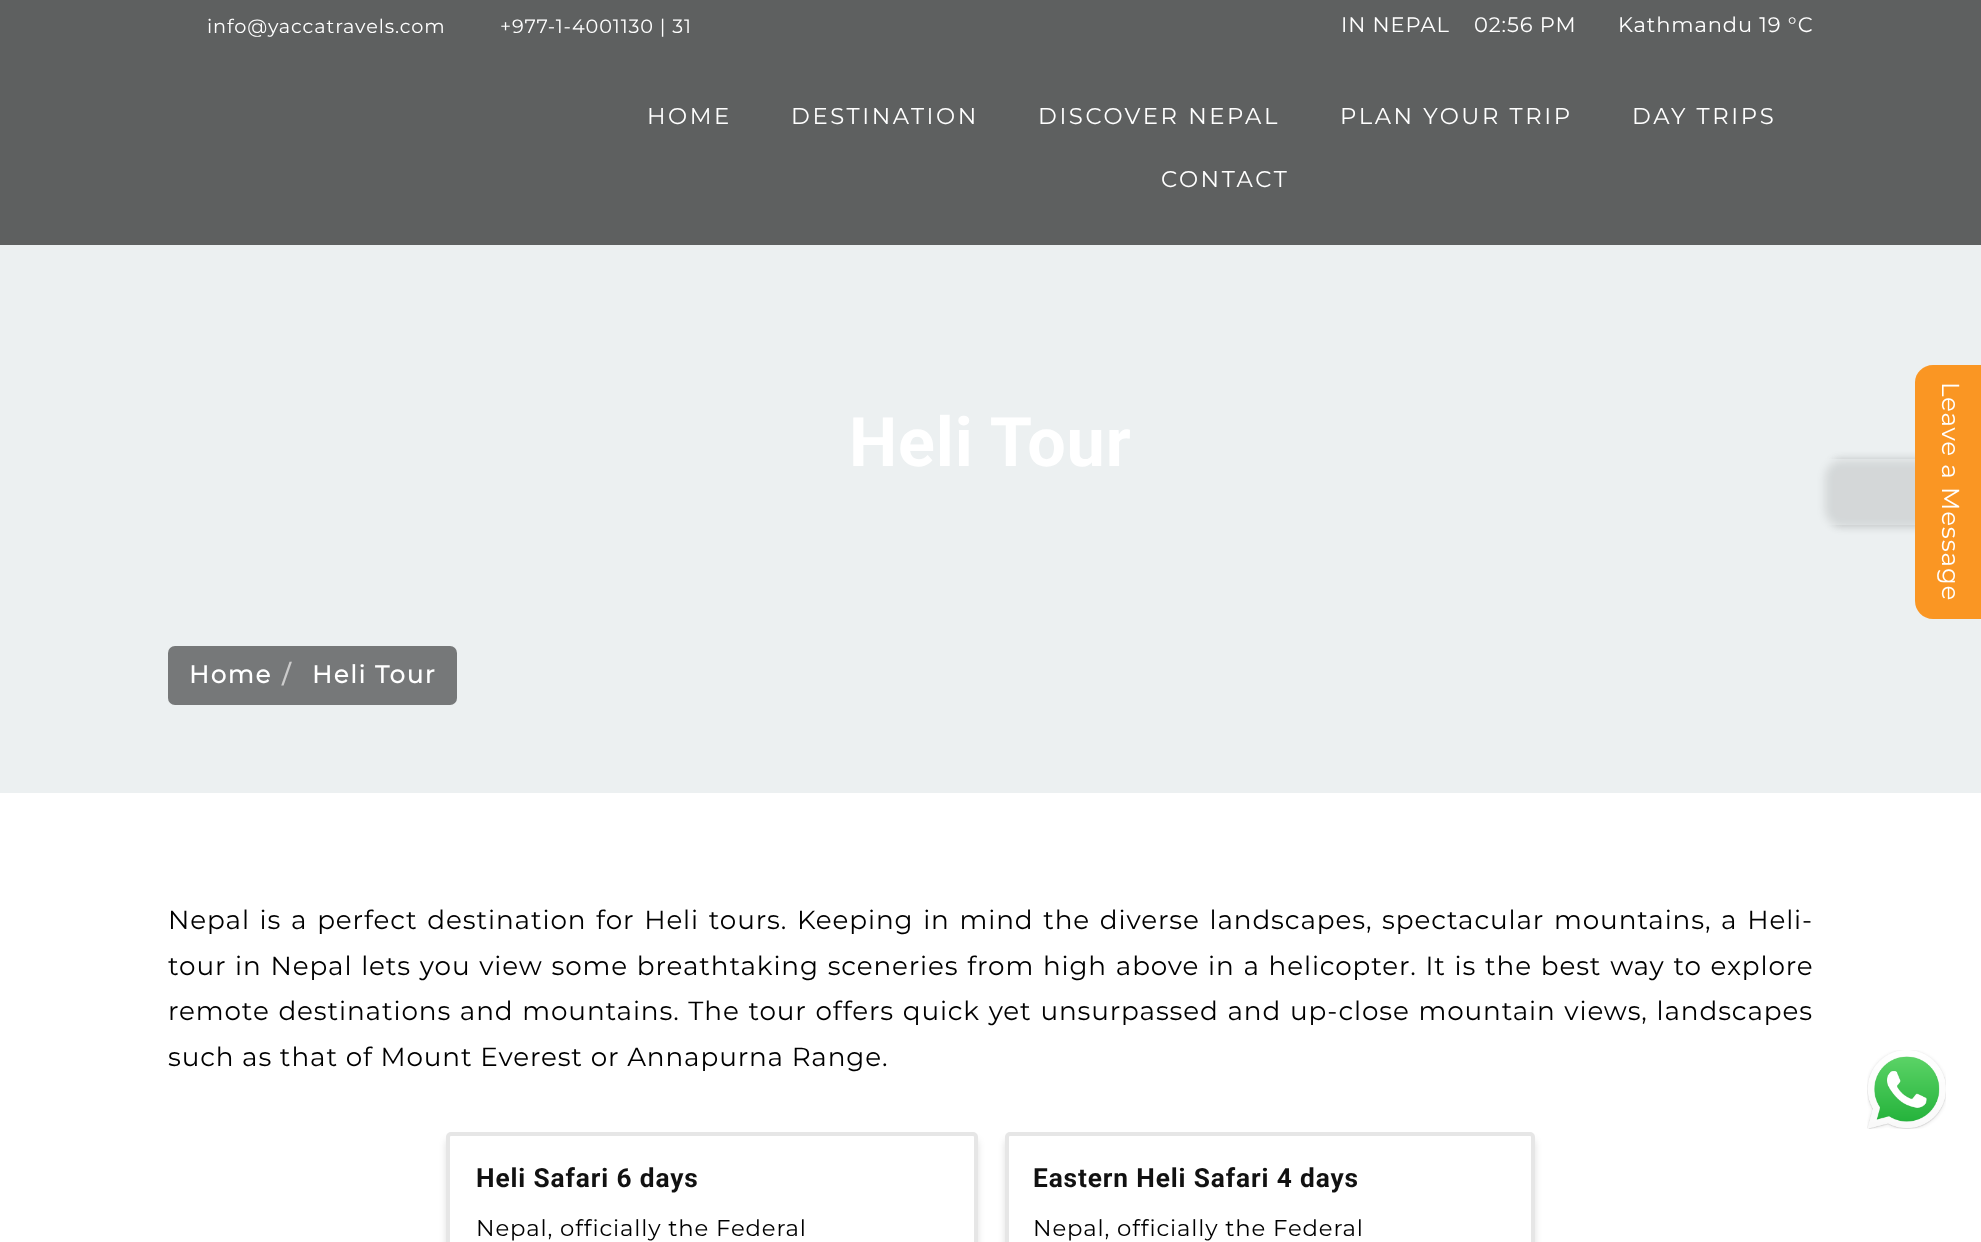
<!DOCTYPE html>
<meta charset="utf-8">
<style>body { margin: 0 } canvas { display: block }</style>
<canvas id="canvas" width="1981" height="1242"></canvas>
<img id="img1" src="images/1.png" hidden>
<script>
window.onload = function () {
    const canvas = document.getElementById('canvas');
    const context = canvas.getContext('2d');
    context.miterLimit = 4;
    context.fontKerning = 'normal';

    context.fillStyle = 'rgb(255, 255, 255)';
    context.fillRect(0, 0, 1981, 1242);
    context.fillStyle = 'rgb(236, 240, 241)';
    context.fillRect(0, 0, 1981, 793);
    context.fillStyle = 'rgba(0, 0, 0, 0.6)';
    context.fillRect(0, 0, 1981, 245);
    context.fillStyle = 'rgb(118, 120, 121)';
    context.beginPath();
    context.roundRect(168, 646, 289, 59, 7);
    context.fill();
    context.save();
    context.beginPath();
    context.moveTo(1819, 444);
    context.lineTo(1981, 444);
    context.lineTo(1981, 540);
    context.lineTo(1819, 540);
    context.closePath();
    context.moveTo(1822, 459);
    context.lineTo(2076, 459);
    context.lineTo(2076, 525);
    context.lineTo(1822, 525);
    context.closePath();
    context.clip('evenodd');
    context.fillStyle = 'rgba(0, 0, 0, 0.1)';
    context.filter = 'blur(4.5px)';
    context.beginPath();
    context.rect(1834, 459, 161, 66);
    context.fill();
    context.filter = 'none';
    context.restore();
    context.fillStyle = 'rgba(0, 0, 0, 0.1)';
    context.filter = 'blur(4.5px)';
    context.beginPath();
    context.roundRect(1825, 460, 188, 67, 18);
    context.fill();
    context.filter = 'none';
    context.fillStyle = 'rgb(250, 150, 35)';
    context.beginPath();
    context.moveTo(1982, 365);
    context.lineTo(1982, 619);
    context.lineTo(1933, 619);
    context.bezierCurveTo(1923, 619, 1915, 611, 1915, 601);
    context.lineTo(1915, 382);
    context.bezierCurveTo(1915, 373, 1923, 365, 1933, 365);
    context.closePath();
    context.fill();
    context.fillStyle = 'rgba(0, 0, 0, 0.12)';
    context.filter = 'blur(3.5px)';
    context.beginPath();
    context.roundRect(446, 1139, 532, 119, 5);
    context.fill();
    context.filter = 'none';
    context.fillStyle = 'rgb(255, 255, 255)';
    context.beginPath();
    context.roundRect(448, 1134, 528, 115, 3);
    context.fill();
    context.strokeStyle = 'rgb(230, 230, 230)';
    context.lineWidth = 4;
    context.stroke();
    context.fillStyle = 'rgba(0, 0, 0, 0.12)';
    context.filter = 'blur(3.5px)';
    context.beginPath();
    context.roundRect(1005, 1139, 530, 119, 5);
    context.fill();
    context.filter = 'none';
    context.fillStyle = 'rgb(255, 255, 255)';
    context.beginPath();
    context.roundRect(1007, 1134, 526, 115, 3);
    context.fill();
    context.stroke();
    context.drawImage(document.getElementById('img1'), 1867, 1050, 79, 79);
    context.letterSpacing = '0.88px';
    context.font = '100 19.25px Montserrat';
    context.fillText('info@yaccatravels.com', 207, 33);
    context.fillText('+977-1-4001130 | 31', 500, 33);
    context.font = '100 21px Montserrat';
    context.fillText('IN NEPAL', 1341, 32);
    context.fillText('02:56 PM', 1474, 32);
    context.fillText('Kathmandu 19 °C', 1618, 32);
    context.letterSpacing = '2.6px';
    context.font = '100 22.75px Montserrat';
    context.fillText('HOME', 647, 124);
    context.fillText('DESTINATION', 791, 124);
    context.fillText('DISCOVER NEPAL', 1038, 124);
    context.fillText('PLAN YOUR TRIP', 1340, 124);
    context.fillText('DAY TRIPS', 1632, 124);
    context.fillText('CONTACT', 1161, 187);
    context.letterSpacing = '0.88px';
    context.font = 'bold 68.25px Roboto';
    context.fillText('Heli Tour', 849, 466);
    context.letterSpacing = '1.75px';
    context.font = 'bold 24.5px Montserrat';
    context.fillText('Home', 189, 683);
    context.fillStyle = 'rgb(204, 204, 204)';
    context.fillText('/', 282, 683);
    context.fillStyle = 'rgb(255, 255, 255)';
    context.fillText('Heli Tour', 312, 683);
    context.letterSpacing = '0.88px';
    context.font = '100 24.5px Montserrat';
    context.save();
    context.translate(1942, 382);
    context.rotate(90 * Math.PI / 180);
    context.fillText('Leave a Message', 0, 0);
    context.restore();
    context.wordSpacing = '2px';
    context.font = '100 26.25px Montserrat';
    context.fillStyle = 'rgb(0, 0, 0)';
    context.fillText('Nepal is a perfect destination for Heli tours. Keeping in mind the diverse landscapes, spectacular mountains, a Heli-', 168, 929);
    context.wordSpacing = '1.05px';
    context.fillText('tour in Nepal lets you view some breathtaking sceneries from high above in a helicopter. It is the best way to explore', 168, 975);
    context.wordSpacing = '1px';
    context.fillText('remote destinations and mountains. The tour offers quick yet unsurpassed and up-close mountain views, landscapes', 168, 1020);
    context.wordSpacing = '0px';
    context.fillText('such as that of Mount Everest or Annapurna Range.', 168, 1066);
    context.font = 'bold 26.25px Roboto';
    context.fillStyle = 'rgb(17, 17, 17)';
    context.fillText('Heli Safari 6 days', 476, 1187);
    context.font = '100 22.75px Montserrat';
    context.fillStyle = 'rgb(0, 0, 0)';
    context.fillText('Nepal, officially the Federal', 476, 1236);
    context.font = 'bold 26.25px Roboto';
    context.fillStyle = 'rgb(17, 17, 17)';
    context.fillText('Eastern Heli Safari 4 days', 1033, 1187);
    context.font = '100 22.75px Montserrat';
    context.fillStyle = 'rgb(0, 0, 0)';
    context.fillText('Nepal, officially the Federal', 1033, 1236);
};
</script>
